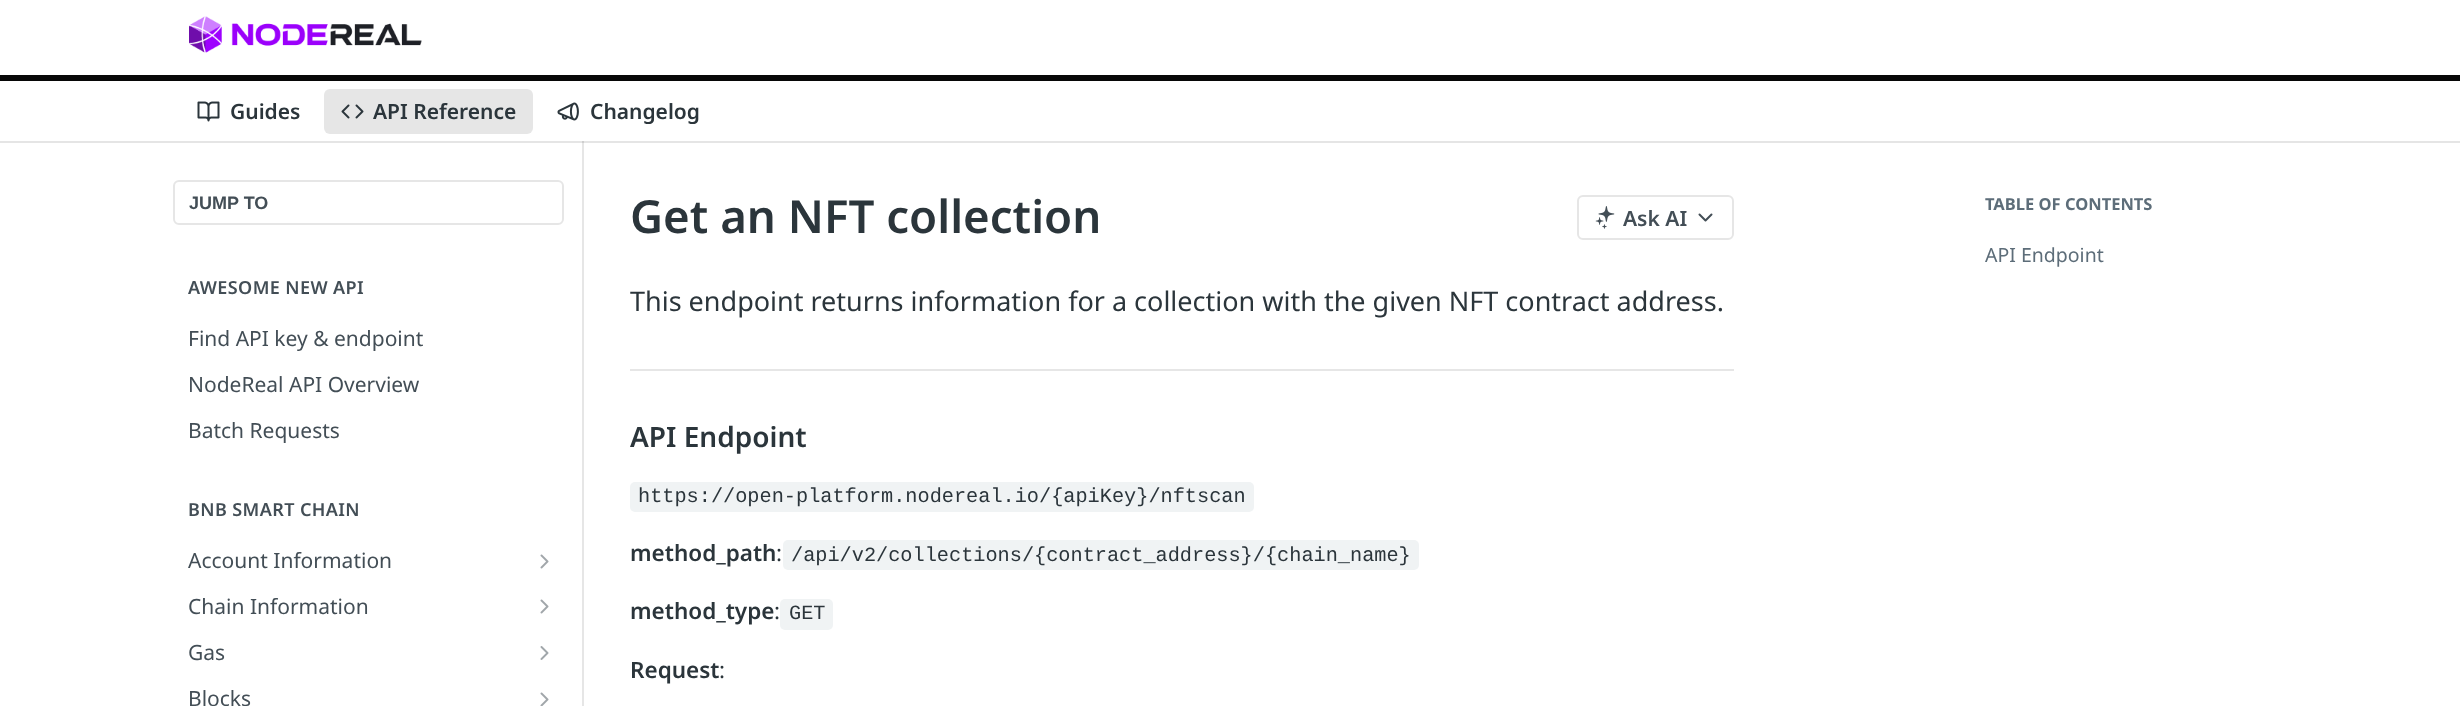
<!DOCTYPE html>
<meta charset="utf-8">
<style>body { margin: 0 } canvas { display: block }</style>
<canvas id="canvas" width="2460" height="706"></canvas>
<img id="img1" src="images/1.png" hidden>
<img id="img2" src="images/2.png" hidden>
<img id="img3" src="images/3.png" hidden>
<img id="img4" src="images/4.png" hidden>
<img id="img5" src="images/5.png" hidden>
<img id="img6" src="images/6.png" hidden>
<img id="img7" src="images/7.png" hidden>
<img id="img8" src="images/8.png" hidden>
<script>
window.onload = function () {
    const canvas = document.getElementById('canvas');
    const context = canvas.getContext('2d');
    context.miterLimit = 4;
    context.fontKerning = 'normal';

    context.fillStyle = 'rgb(255, 255, 255)';
    context.fillRect(0, 0, 2460, 706);
    context.fillStyle = 'rgb(230, 230, 230)';
    context.beginPath();
    context.moveTo(152, 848);
    context.lineTo(584, 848);
    context.lineTo(584, 141);
    context.lineTo(582, 141);
    context.lineTo(582, 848);
    context.closePath();
    context.fill();
    context.fillStyle = 'rgba(0, 0, 0, 0.1)';
    context.fillRect(0, 141, 2460, 2);
    context.fillStyle = 'rgb(7, 7, 7)';
    context.fillRect(0, 75, 2460, 6);
    context.drawImage(document.getElementById('img1'), 189, 16, 233, 37);
    context.drawImage(document.getElementById('img2'), 197, 101, 23, 21);
    context.fillStyle = 'rgb(230, 230, 230)';
    context.beginPath();
    context.roundRect(324, 89, 209, 45, 6);
    context.fill();
    context.drawImage(document.getElementById('img3'), 341, 104, 23, 15);
    context.drawImage(document.getElementById('img4'), 557, 102, 22, 19);
    context.beginPath();
    context.roundRect(174, 181, 389, 43, 5);
    context.strokeStyle = 'rgb(230, 230, 230)';
    context.lineWidth = 2;
    context.stroke();
    context.drawImage(document.getElementById('img5'), 540, 554, 9, 15);
    context.drawImage(document.getElementById('img5'), 540, 599, 9, 15);
    context.drawImage(document.getElementById('img6'), 540, 646, 9, 14);
    context.drawImage(document.getElementById('img7'), 540, 692, 9, 14);
    context.fillRect(630, 369, 1104, 2);
    context.beginPath();
    context.roundRect(1578, 196, 155, 43, 5);
    context.stroke();
    context.drawImage(document.getElementById('img8'), 1595, 206, 20, 23);
    context.beginPath();
    context.moveTo(1699.5, 214.5);
    context.lineTo(1705.5, 220.5);
    context.lineTo(1711.5, 214.5);
    context.strokeStyle = 'rgb(67, 78, 86)';
    context.lineCap = 'round';
    context.lineJoin = 'round';
    context.stroke();
    context.fillStyle = 'rgb(240, 243, 244)';
    context.beginPath();
    context.roundRect(630, 482, 624, 30, 5);
    context.fill();
    context.beginPath();
    context.roundRect(783, 540, 636, 30, 5);
    context.fill();
    context.beginPath();
    context.roundRect(780, 599, 53, 31, 5);
    context.fill();
    context.font = '600 21px Noto Sans';
    context.fillStyle = 'rgb(43, 53, 59)';
    context.fillText('Guides', 230, 119);
    context.fillText('API Reference', 373, 119);
    context.fillText('Changelog', 590, 119);
    context.font = 'bold 18px Liberation Sans';
    context.fillStyle = 'rgb(67, 78, 86)';
    context.fillText('JUMP TO', 189, 209);
    context.letterSpacing = '0.4px';
    context.font = '600 18px Noto Sans';
    context.fillText('AWESOME NEW API', 188, 294);
    context.letterSpacing = '0px';
    context.font = '21px Noto Sans';
    context.fillText('Find API key & endpoint', 188, 346);
    context.fillText('NodeReal API Overview', 188, 392);
    context.fillText('Batch Requests', 188, 438);
    context.letterSpacing = '0.4px';
    context.font = '600 18px Noto Sans';
    context.fillText('BNB SMART CHAIN', 188, 516);
    context.letterSpacing = '0px';
    context.font = '21px Noto Sans';
    context.fillText('Account Information', 188, 568);
    context.fillText('Chain Information', 188, 614);
    context.fillText('Gas', 188, 660);
    context.fillText('Blocks', 188, 706);
    context.font = '600 45.6px Noto Sans';
    context.fillStyle = 'rgb(43, 53, 59)';
    context.fillText('Get an NFT collection', 630, 233);
    context.font = '600 21px Noto Sans';
    context.fillStyle = 'rgb(67, 78, 86)';
    context.fillText('Ask AI', 1623, 226);
    context.font = '27px Noto Sans';
    context.fillStyle = 'rgb(43, 53, 59)';
    context.fillText('This endpoint returns information for a collection with the given NFT contract address.', 630, 311);
    context.font = '600 28px Noto Sans';
    context.fillText('API Endpoint', 630, 447);
    context.font = '20.25px Liberation Mono';
    context.fillText('https://open-platform.nodereal.io/{apiKey}/nftscan', 638, 502);
    context.font = '600 22.5px Noto Sans';
    context.fillText('method_path', 630, 561);
    context.font = '22.5px Noto Sans';
    context.fillText(':', 776, 561);
    context.font = '20.25px Liberation Mono';
    context.fillText('/api/v2/collections/{contract_address}/{chain_name}', 791, 561);
    context.font = '600 22.5px Noto Sans';
    context.fillText('method_type', 630, 619);
    context.font = '22.5px Noto Sans';
    context.fillText(':', 774, 619);
    context.font = '20.25px Liberation Mono';
    context.fillText('GET', 789, 619);
    context.font = '600 22.5px Noto Sans';
    context.fillText('Request', 630, 678);
    context.font = '22.5px Noto Sans';
    context.fillText(':', 719, 678);
    context.font = 'bold 16.5px Noto Sans';
    context.fillStyle = 'rgb(93, 109, 121)';
    context.fillText('TABLE OF CONTENTS', 1985, 210);
    context.font = '19.5px Noto Sans';
    context.fillText('API Endpoint', 1985, 262);
};
</script>
